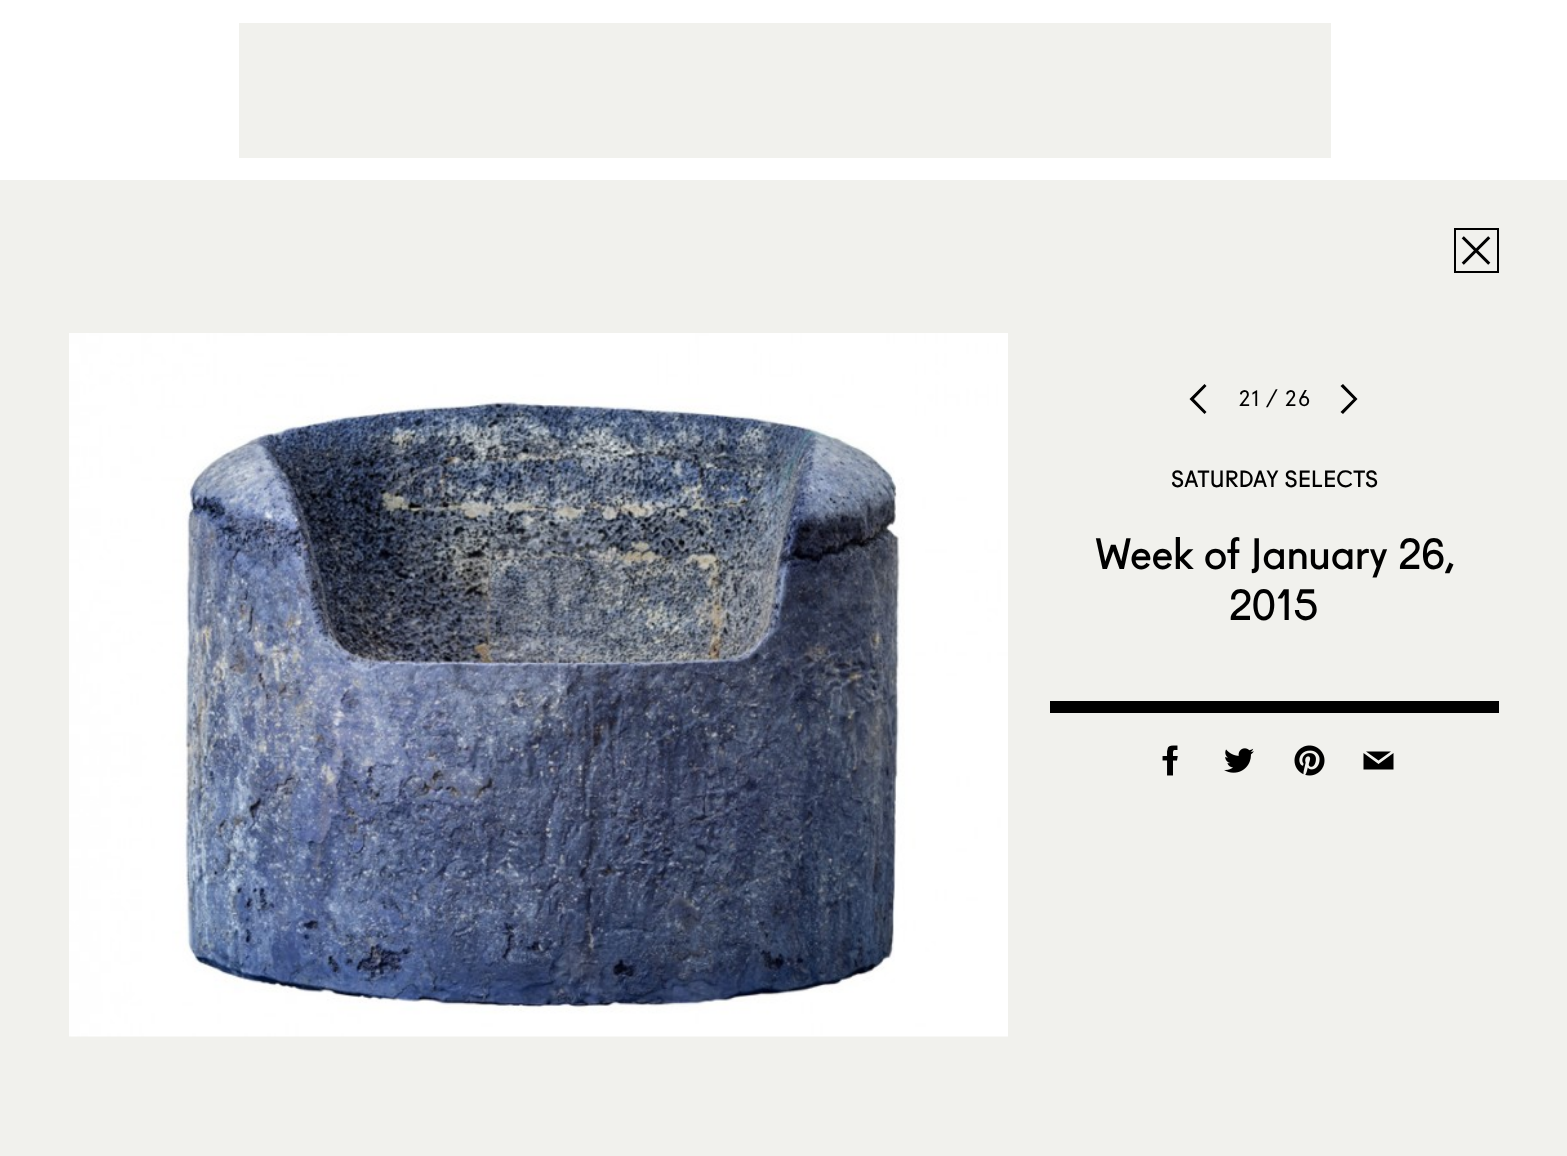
<!DOCTYPE html>
<meta charset="utf-8">
<style>body { margin: 0 } canvas { display: block }</style>
<canvas id="canvas" width="1567" height="1156"></canvas>
<img id="img1" src="images/1.png" hidden>
<img id="img2" src="images/2.png" hidden>
<img id="img3" src="images/3.png" hidden>
<img id="img4" src="images/4.png" hidden>
<img id="img5" src="images/5.png" hidden>
<script>
window.onload = function () {
    const canvas = document.getElementById('canvas');
    const context = canvas.getContext('2d');
    context.miterLimit = 4;
    context.fontKerning = 'normal';

    context.fillStyle = 'rgb(241, 241, 237)';
    context.fillRect(0, 0, 1567, 1156);
    context.fillStyle = 'rgb(255, 255, 255)';
    context.fillRect(0, 0, 1567, 180);
    context.fillStyle = 'rgb(241, 241, 237)';
    context.fillRect(239, 23, 1092, 135);
    context.strokeStyle = 'rgb(0, 0, 0)';
    context.lineWidth = 2;
    context.strokeRect(1455, 229, 43, 43);
    context.drawImage(document.getElementById('img1'), 1461, 236, 30, 29);
    context.drawImage(document.getElementById('img2'), 69, 333, 939, 704);
    context.fillStyle = 'rgb(0, 0, 0)';
    context.beginPath();
    context.moveTo(1206.5, 412);
    context.lineTo(1193, 398);
    context.lineTo(1193, 400);
    context.lineTo(1206.5, 386);
    context.lineTo(1204.5, 384);
    context.lineTo(1189.5, 399);
    context.lineTo(1204.5, 414);
    context.closePath();
    context.fill();
    context.beginPath();
    context.moveTo(1340.5, 386);
    context.lineTo(1354.5, 400);
    context.lineTo(1354.5, 398);
    context.lineTo(1340.5, 412);
    context.lineTo(1343, 414);
    context.lineTo(1357.5, 399);
    context.lineTo(1343, 384);
    context.closePath();
    context.fill();
    context.fillRect(1050, 701, 449, 12);
    context.drawImage(document.getElementById('img3'), 1162, 745, 16, 31);
    context.drawImage(document.getElementById('img4'), 1224, 748, 30, 25);
    context.drawImage(document.getElementById('img5'), 1294, 745, 31, 31);
    context.beginPath();
    context.moveTo(1391, 751.5);
    context.lineTo(1366, 751.5);
    context.lineTo(1378.5, 760.5);
    context.closePath();
    context.moveTo(1378.5, 764);
    context.lineTo(1363.5, 753);
    context.lineTo(1363.5, 769.5);
    context.lineTo(1393.5, 769.5);
    context.lineTo(1393.5, 753);
    context.closePath();
    context.fill();
    context.letterSpacing = '0.25px';
    context.font = '22.5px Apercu';
    context.fillText('21 / 26', 1238, 406);
    context.font = '22.5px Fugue';
    context.fillText('SATURDAY SELECTS', 1171, 487);
    context.font = '42px Fugue';
    context.fillText('Week of January 26,', 1095, 569);
    context.fillText('2015', 1229, 620);
};
</script>
